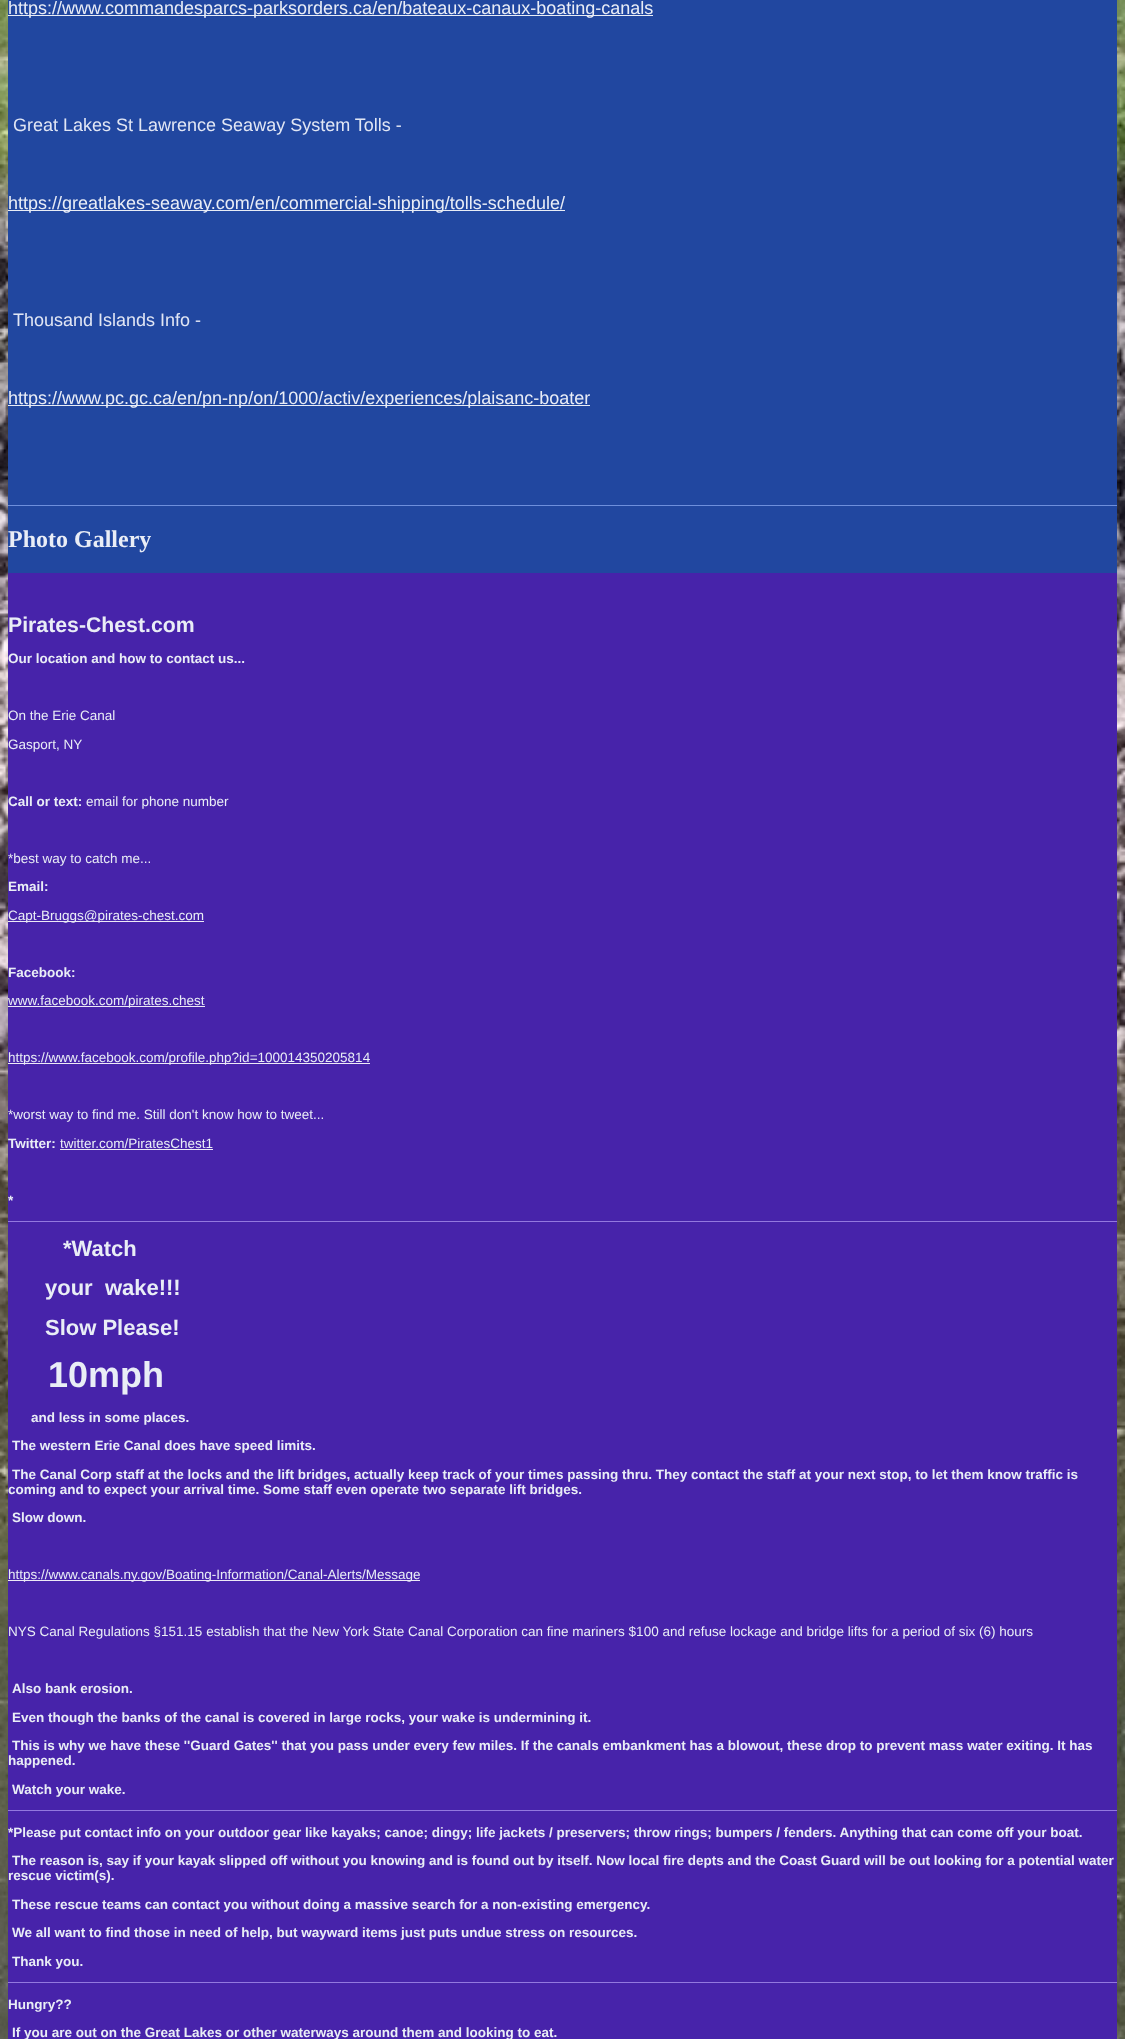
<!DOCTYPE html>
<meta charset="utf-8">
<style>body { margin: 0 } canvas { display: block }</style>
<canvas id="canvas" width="1125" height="2039"></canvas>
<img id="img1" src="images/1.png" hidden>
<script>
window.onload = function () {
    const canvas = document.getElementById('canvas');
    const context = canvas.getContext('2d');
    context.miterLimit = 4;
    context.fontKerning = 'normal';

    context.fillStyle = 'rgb(255, 255, 255)';
    context.fillRect(0, 0, 1125, 2039);
    context.drawImage(document.getElementById('img1'), 0, 0, 1125, 2039);
    context.fillStyle = 'rgb(33, 71, 160)';
    context.fillRect(8, 0, 1109, 573);
    context.fillStyle = 'rgb(233, 237, 246)';
    context.fillRect(8, 15, 645, 1);
    context.fillRect(8, 210, 557, 1);
    context.fillRect(8, 405, 582, 1);
    context.fillStyle = 'rgb(110, 143, 220)';
    context.fillRect(8, 505, 1109, 1);
    context.fillStyle = 'rgb(71, 35, 170)';
    context.fillRect(8, 573, 1109, 1466);
    context.fillStyle = 'rgb(237, 233, 247)';
    context.fillRect(8, 921, 196, 1);
    context.fillRect(8, 1006, 197, 1);
    context.fillRect(8, 1063, 362, 1);
    context.fillRect(60, 1149, 153, 1);
    context.fillStyle = 'rgb(147, 120, 223)';
    context.fillRect(8, 1221, 1109, 1);
    context.fillStyle = 'rgb(237, 233, 247)';
    context.fillRect(8, 1580, 412, 1);
    context.fillStyle = 'rgb(147, 120, 223)';
    context.fillRect(8, 1810, 1109, 1);
    context.fillRect(8, 1982, 1109, 1);
    context.font = '18px Liberation Sans';
    context.fillStyle = 'rgb(233, 237, 246)';
    context.fillText('https://www.commandesparcs-parksorders.ca/en/bateaux-canaux-boating-canals', 8, 14);
    context.fillStyle = 'rgb(225, 230, 244)';
    context.fillText('Great Lakes St Lawrence Seaway System Tolls -', 13, 131);
    context.fillStyle = 'rgb(233, 237, 246)';
    context.fillText('https://greatlakes-seaway.com/en/commercial-shipping/tolls-schedule/', 8, 209);
    context.fillStyle = 'rgb(225, 230, 244)';
    context.fillText('Thousand Islands Info -', 13, 326);
    context.fillStyle = 'rgb(233, 237, 246)';
    context.fillText('https://www.pc.gc.ca/en/pn-np/on/1000/activ/experiences/plaisanc-boater', 8, 404);
    context.font = 'bold 24px Liberation Serif';
    context.fillText('Photo Gallery', 8, 547);
    context.font = 'bold 21.25px Liberation Sans';
    context.fillText('Pirates-Chest.com', 8, 632);
    context.font = 'bold 13.5px Liberation Sans';
    context.fillText('Our location and how to contact us...', 8, 663);
    context.font = '13.5px Liberation Sans';
    context.fillText('On the Erie Canal', 8, 720);
    context.fillText('Gasport, NY', 8, 749);
    context.font = 'bold 13.5px Liberation Sans';
    context.fillText('Call or text:', 8, 806);
    context.font = '13.5px Liberation Sans';
    context.fillText('email for phone number', 86, 806);
    context.fillText('*best way to catch me...', 8, 863);
    context.font = 'bold 13.5px Liberation Sans';
    context.fillText('Email:', 8, 891);
    context.font = '13.5px Liberation Sans';
    context.fillText('Capt-Bruggs@pirates-chest.com', 8, 920);
    context.font = 'bold 13.5px Liberation Sans';
    context.fillText('Facebook:', 8, 977);
    context.font = '13.5px Liberation Sans';
    context.fillText('www.facebook.com/pirates.chest', 8, 1005);
    context.fillText('https://www.facebook.com/profile.php?id=100014350205814', 8, 1062);
    context.fillText('*worst way to find me. Still don\'t know how to tweet...', 8, 1119);
    context.font = 'bold 13.5px Liberation Sans';
    context.fillText('Twitter:', 8, 1148);
    context.font = '13.5px Liberation Sans';
    context.fillText('twitter.com/PiratesChest1', 60, 1148);
    context.font = 'bold 13.5px Liberation Sans';
    context.fillText('*', 8, 1205);
    context.font = 'bold 22px Liberation Sans';
    context.fillText('*Watch', 63, 1256);
    context.fillText('your  wake!!!', 45, 1295);
    context.fillText('Slow Please!', 45, 1335);
    context.font = 'bold 36px Liberation Sans';
    context.fillText('10mph', 48, 1387);
    context.font = 'bold 13.5px Liberation Sans';
    context.fillText('and less in some places.', 31, 1422);
    context.fillText('The western Erie Canal does have speed limits.', 12, 1450);
    context.fillText('The Canal Corp staff at the locks and the lift bridges, actually keep track of your times passing thru. They contact the staff at your next stop, to let them know traffic is', 12, 1479);
    context.fillText('coming and to expect your arrival time. Some staff even operate two separate lift bridges.', 8, 1494);
    context.fillText('Slow down.', 12, 1522);
    context.font = '13.5px Liberation Sans';
    context.fillText('https://www.canals.ny.gov/Boating-Information/Canal-Alerts/Message', 8, 1579);
    context.fillText('NYS Canal Regulations §151.15 establish that the New York State Canal Corporation can fine mariners $100 and refuse lockage and bridge lifts for a period of six (6) hours', 8, 1636);
    context.font = 'bold 13.5px Liberation Sans';
    context.fillText('Also bank erosion.', 12, 1693);
    context.fillText('Even though the banks of the canal is covered in large rocks, your wake is undermining it.', 12, 1722);
    context.fillText('This is why we have these \'\'Guard Gates\'\' that you pass under every few miles. If the canals embankment has a blowout, these drop to prevent mass water exiting. It has', 12, 1750);
    context.fillText('happened.', 8, 1765);
    context.fillText('Watch your wake.', 12, 1794);
    context.fillText('*Please put contact info on your outdoor gear like kayaks; canoe; dingy; life jackets / preservers; throw rings; bumpers / fenders. Anything that can come off your boat.', 8, 1837);
    context.fillText('The reason is, say if your kayak slipped off without you knowing and is found out by itself. Now local fire depts and the Coast Guard will be out looking for a potential water', 12, 1865);
    context.fillText('rescue victim(s).', 8, 1880);
    context.fillText('These rescue teams can contact you without doing a massive search for a non-existing emergency.', 12, 1909);
    context.fillText('We all want to find those in need of help, but wayward items just puts undue stress on resources.', 12, 1937);
    context.fillText('Thank you.', 12, 1966);
    context.fillText('Hungry??', 8, 2009);
    context.fillText('If you are out on the Great Lakes or other waterways around them and looking to eat.', 12, 2037);
};
</script>
